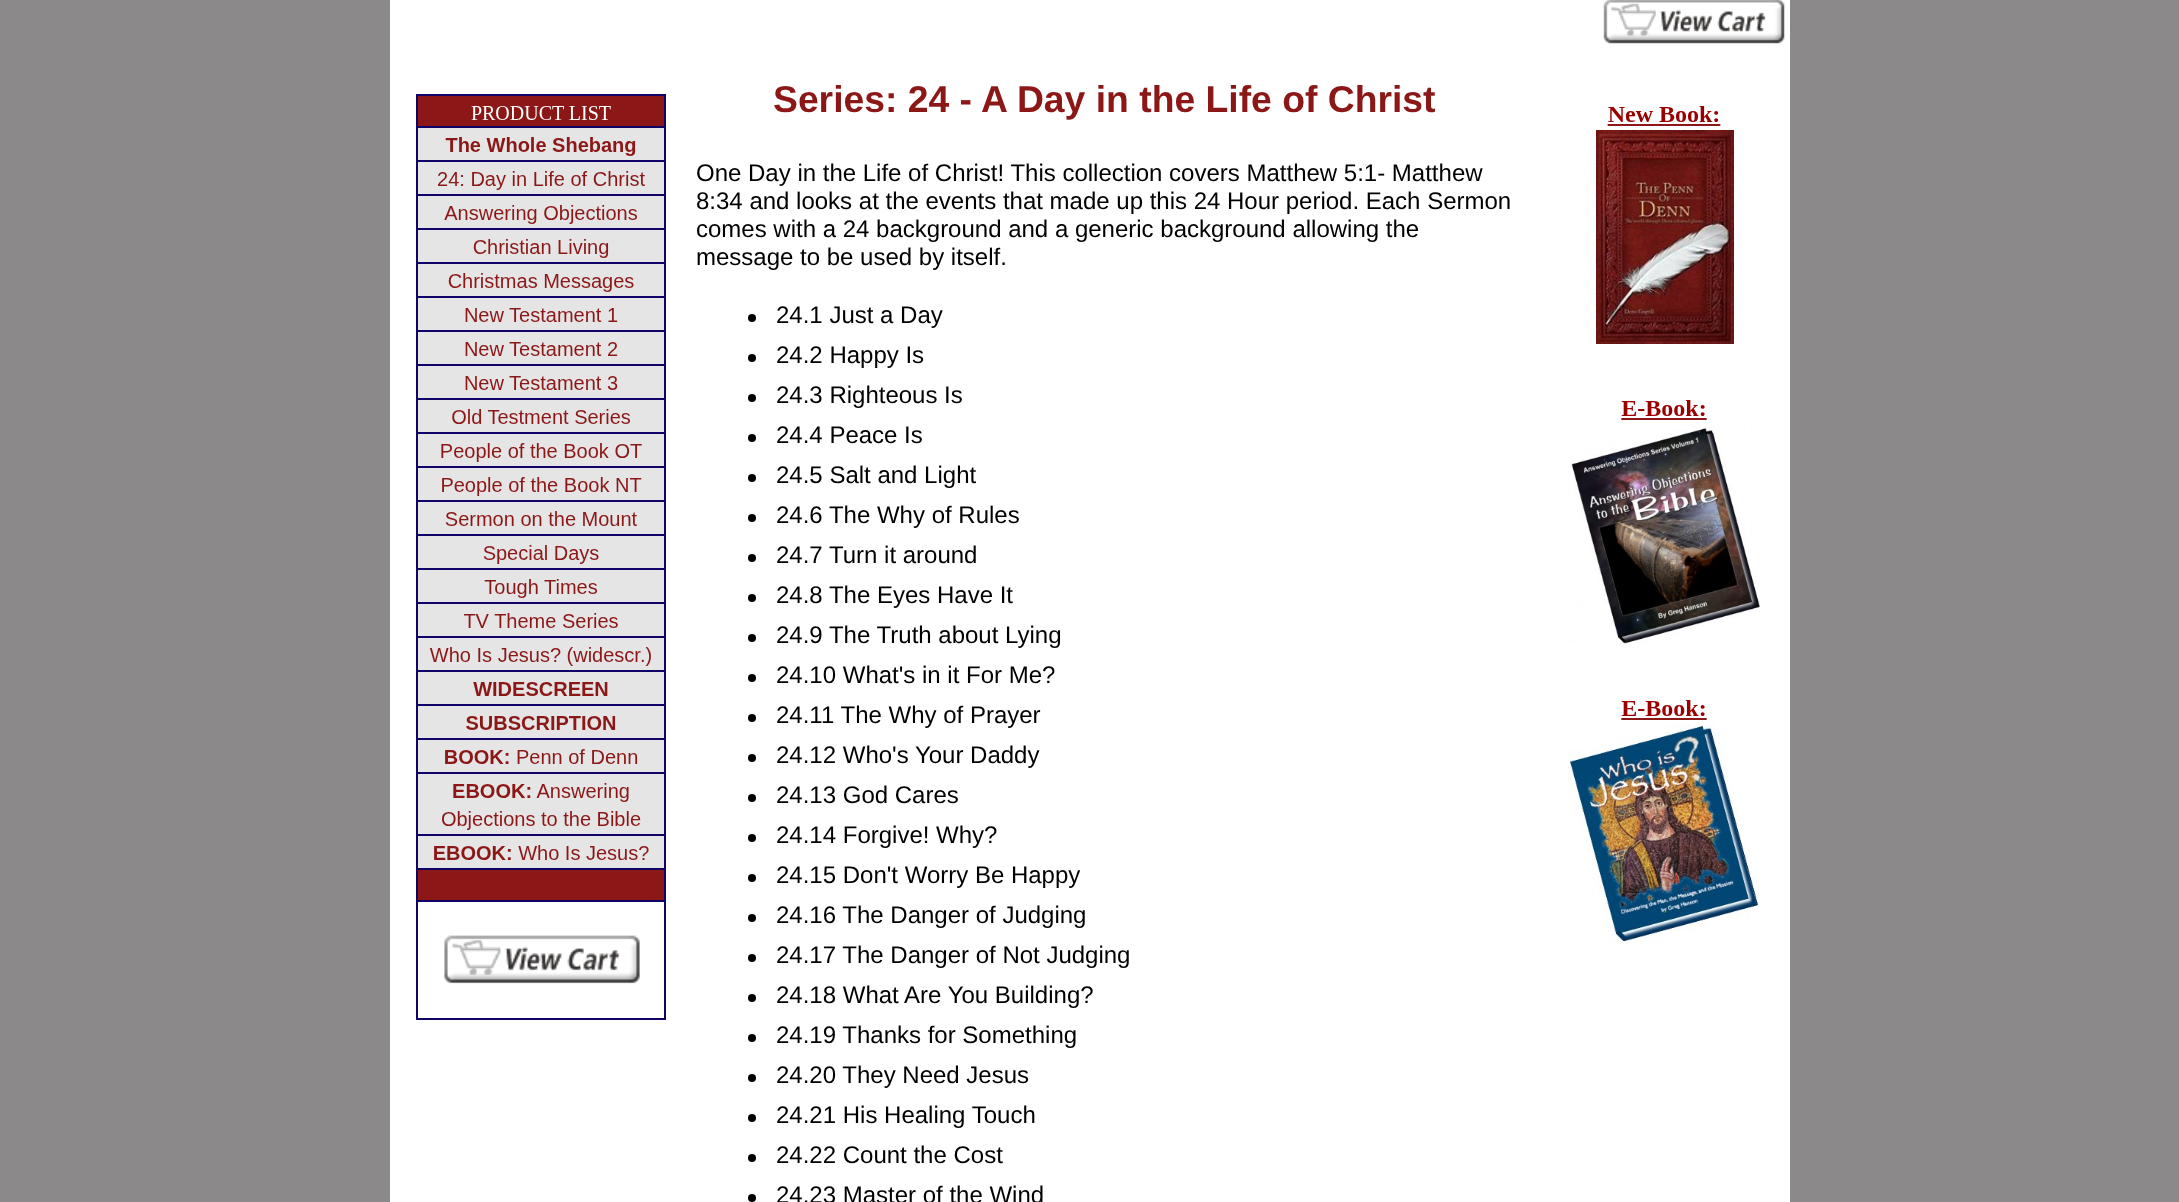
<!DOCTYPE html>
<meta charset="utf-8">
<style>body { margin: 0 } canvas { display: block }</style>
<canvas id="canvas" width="2179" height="1202"></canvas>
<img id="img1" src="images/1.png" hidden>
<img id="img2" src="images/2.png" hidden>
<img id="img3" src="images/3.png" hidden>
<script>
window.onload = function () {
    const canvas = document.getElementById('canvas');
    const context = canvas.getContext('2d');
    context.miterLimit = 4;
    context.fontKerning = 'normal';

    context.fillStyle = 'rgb(139, 137, 137)';
    context.fillRect(0, 0, 2179, 1202);
    context.fillStyle = 'rgb(255, 255, 255)';
    context.fillRect(390, 0, 1400, 1202);
    context.drawImage(document.getElementById('img1'), 1603, 0, 182, 44);
    context.drawImage(document.getElementById('img2'), 416, 94, 250, 926);
    context.fillStyle = 'rgb(0, 0, 0)';
    context.beginPath();
    context.arc(752, 318, 4, 0, 2 * Math.PI);
    context.fill();
    context.beginPath();
    context.arc(752, 358, 4, 0, 2 * Math.PI);
    context.fill();
    context.beginPath();
    context.arc(752, 398, 4, 0, 2 * Math.PI);
    context.fill();
    context.beginPath();
    context.arc(752, 438, 4, 0, 2 * Math.PI);
    context.fill();
    context.beginPath();
    context.arc(752, 478, 4, 0, 2 * Math.PI);
    context.fill();
    context.beginPath();
    context.arc(752, 518, 4, 0, 2 * Math.PI);
    context.fill();
    context.beginPath();
    context.arc(752, 558, 4, 0, 2 * Math.PI);
    context.fill();
    context.beginPath();
    context.arc(752, 598, 4, 0, 2 * Math.PI);
    context.fill();
    context.beginPath();
    context.arc(752, 638, 4, 0, 2 * Math.PI);
    context.fill();
    context.beginPath();
    context.arc(752, 678, 4, 0, 2 * Math.PI);
    context.fill();
    context.beginPath();
    context.arc(752, 718, 4, 0, 2 * Math.PI);
    context.fill();
    context.beginPath();
    context.arc(752, 758, 4, 0, 2 * Math.PI);
    context.fill();
    context.beginPath();
    context.arc(752, 798, 4, 0, 2 * Math.PI);
    context.fill();
    context.beginPath();
    context.arc(752, 838, 4, 0, 2 * Math.PI);
    context.fill();
    context.beginPath();
    context.arc(752, 878, 4, 0, 2 * Math.PI);
    context.fill();
    context.beginPath();
    context.arc(752, 918, 4, 0, 2 * Math.PI);
    context.fill();
    context.beginPath();
    context.arc(752, 958, 4, 0, 2 * Math.PI);
    context.fill();
    context.beginPath();
    context.arc(752, 998, 4, 0, 2 * Math.PI);
    context.fill();
    context.beginPath();
    context.arc(752, 1038, 4, 0, 2 * Math.PI);
    context.fill();
    context.beginPath();
    context.arc(752, 1078, 4, 0, 2 * Math.PI);
    context.fill();
    context.beginPath();
    context.arc(752, 1118, 4, 0, 2 * Math.PI);
    context.fill();
    context.beginPath();
    context.arc(752, 1158, 4, 0, 2 * Math.PI);
    context.fill();
    context.beginPath();
    context.arc(752, 1198, 4, 0, 2 * Math.PI);
    context.fill();
    context.drawImage(document.getElementById('img3'), 1568, 106, 192, 838);
    context.font = 'bold 37.3px Liberation Sans';
    context.fillStyle = 'rgb(140, 23, 23)';
    context.fillText('Series: 24 - A Day in the Life of Christ', 773, 112);
    context.font = '24px Liberation Sans';
    context.fillStyle = 'rgb(0, 0, 0)';
    context.fillText('One Day in the Life of Christ! This collection covers Matthew 5:1- Matthew', 696, 181);
    context.fillText('8:34 and looks at the events that made up this 24 Hour period. Each Sermon', 696, 209);
    context.fillText('comes with a 24 background and a generic background allowing the', 696, 237);
    context.fillText('message to be used by itself.', 696, 265);
    context.fillText('24.1 Just a Day', 776, 323);
    context.fillText('24.2 Happy Is', 776, 363);
    context.fillText('24.3 Righteous Is', 776, 403);
    context.fillText('24.4 Peace Is', 776, 443);
    context.fillText('24.5 Salt and Light', 776, 483);
    context.fillText('24.6 The Why of Rules', 776, 523);
    context.fillText('24.7 Turn it around', 776, 563);
    context.fillText('24.8 The Eyes Have It', 776, 603);
    context.fillText('24.9 The Truth about Lying', 776, 643);
    context.fillText('24.10 What\'s in it For Me?', 776, 683);
    context.fillText('24.11 The Why of Prayer', 776, 723);
    context.fillText('24.12 Who\'s Your Daddy', 776, 763);
    context.fillText('24.13 God Cares', 776, 803);
    context.fillText('24.14 Forgive! Why?', 776, 843);
    context.fillText('24.15 Don\'t Worry Be Happy', 776, 883);
    context.fillText('24.16 The Danger of Judging', 776, 923);
    context.fillText('24.17 The Danger of Not Judging', 776, 963);
    context.fillText('24.18 What Are You Building?', 776, 1003);
    context.fillText('24.19 Thanks for Something', 776, 1043);
    context.fillText('24.20 They Need Jesus', 776, 1083);
    context.fillText('24.21 His Healing Touch', 776, 1123);
    context.fillText('24.22 Count the Cost', 776, 1163);
    context.fillText('24.23 Master of the Wind', 776, 1203);
};
</script>
